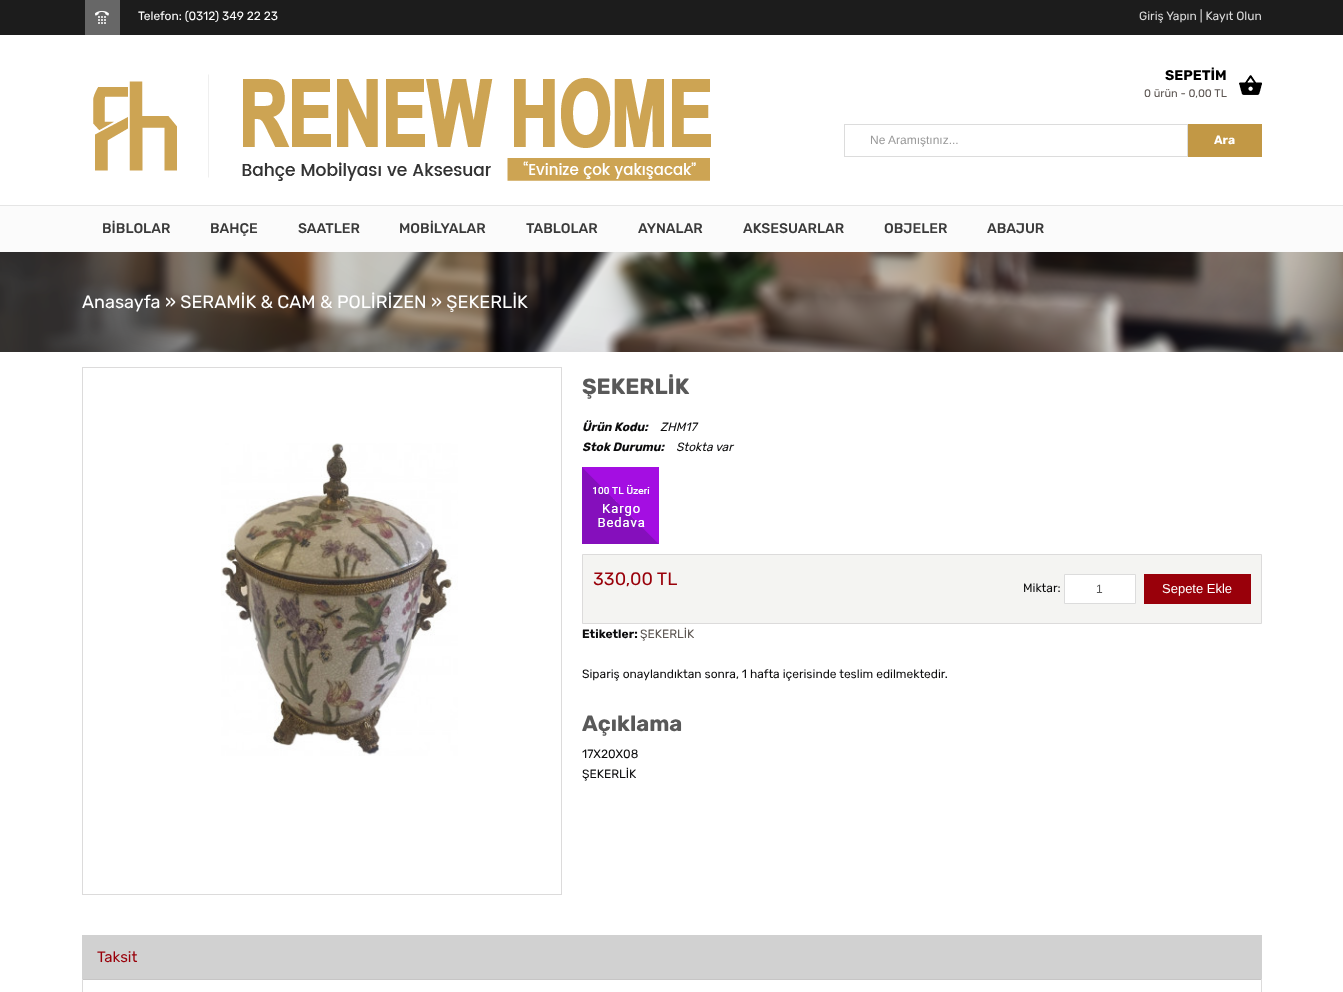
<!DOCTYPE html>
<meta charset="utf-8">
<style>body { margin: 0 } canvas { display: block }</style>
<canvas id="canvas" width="1343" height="992"></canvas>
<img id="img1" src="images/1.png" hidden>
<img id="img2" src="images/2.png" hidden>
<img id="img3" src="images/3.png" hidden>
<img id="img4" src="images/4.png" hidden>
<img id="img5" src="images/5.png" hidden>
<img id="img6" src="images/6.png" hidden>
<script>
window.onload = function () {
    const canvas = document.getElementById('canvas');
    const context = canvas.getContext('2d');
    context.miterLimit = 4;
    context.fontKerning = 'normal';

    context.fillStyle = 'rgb(255, 255, 255)';
    context.fillRect(0, 0, 1343, 992);
    context.fillStyle = 'rgb(28, 28, 28)';
    context.fillRect(0, 0, 1343, 35);
    context.fillStyle = 'rgb(103, 103, 103)';
    context.fillRect(85, 0, 35, 35);
    context.drawImage(document.getElementById('img1'), 95, 10, 14, 14);
    context.drawImage(document.getElementById('img2'), 93, 74, 618, 107);
    context.drawImage(document.getElementById('img3'), 1239, 75, 23, 20);
    context.strokeStyle = 'rgb(220, 220, 220)';
    context.strokeRect(844.5, 124.5, 343, 32);
    context.fillStyle = 'rgb(194, 152, 69)';
    context.fillRect(1188, 124, 74, 33);
    context.fillStyle = 'rgb(251, 251, 251)';
    context.fillRect(0, 206, 1343, 46);
    context.fillStyle = 'rgb(229, 229, 229)';
    context.fillRect(0, 205, 1343, 1);
    context.drawImage(document.getElementById('img4'), 0, 252, 1343, 100);
    context.strokeStyle = 'rgb(220, 219, 219)';
    context.strokeRect(82.5, 367.5, 479, 527);
    context.drawImage(document.getElementById('img5'), 221, 443, 237, 313);
    context.drawImage(document.getElementById('img6'), 582, 467, 77, 77);
    context.fillStyle = 'rgb(244, 244, 242)';
    context.beginPath();
    context.rect(582.5, 554.5, 679, 69);
    context.fill();
    context.stroke();
    context.fillStyle = 'rgb(255, 255, 255)';
    context.beginPath();
    context.rect(1064.5, 574.5, 71, 29);
    context.fill();
    context.strokeStyle = 'rgb(220, 220, 220)';
    context.stroke();
    context.fillStyle = 'rgb(153, 0, 10)';
    context.fillRect(1144, 574, 107, 30);
    context.fillStyle = 'rgb(209, 209, 209)';
    context.fillRect(82, 935, 1180, 44);
    context.fillStyle = 'rgb(198, 197, 197)';
    context.fillRect(82, 979, 1180, 1);
    context.fillStyle = 'rgb(220, 219, 219)';
    context.fillRect(1261, 979, 1, 13);
    context.fillRect(82, 979, 1, 13);
    context.font = '12px Rubik';
    context.fillStyle = 'rgb(255, 255, 255)';
    context.fillText('Telefon: (0312) 349 22 23', 138, 20);
    context.fillStyle = 'rgb(217, 217, 217)';
    context.fillText('Giriş Yapın | Kayıt Olun', 1139, 20);
    context.font = 'bold 14px Rubik';
    context.fillStyle = 'rgb(0, 0, 0)';
    context.fillText('SEPETİM', 1165, 80);
    context.font = '11px Rubik';
    context.fillStyle = 'rgb(94, 87, 83)';
    context.fillText('0 ürün - 0,00 TL', 1144, 97);
    context.font = '12px Liberation Sans';
    context.fillStyle = 'rgb(153, 153, 153)';
    context.fillText('Ne Aramıştınız...', 870, 144);
    context.font = 'bold 12px Rubik';
    context.fillStyle = 'rgb(255, 255, 255)';
    context.fillText('Ara', 1214, 144);
    context.font = '500 14px Rubik';
    context.fillStyle = 'rgb(58, 58, 58)';
    context.fillText('BİBLOLAR', 102, 233);
    context.fillText('BAHÇE', 210, 233);
    context.fillText('SAATLER', 298, 233);
    context.fillText('MOBİLYALAR', 399, 233);
    context.fillText('TABLOLAR', 526, 233);
    context.fillText('AYNALAR', 638, 233);
    context.fillText('AKSESUARLAR', 743, 233);
    context.fillText('OBJELER', 884, 233);
    context.fillText('ABAJUR', 987, 233);
    context.font = '18px Rubik';
    context.fillStyle = 'rgb(255, 255, 255)';
    context.fillText('Anasayfa » SERAMİK & CAM & POLİRİZEN » ŞEKERLİK', 82, 308);
    context.font = 'bold 22px Rubik';
    context.fillStyle = 'rgb(89, 89, 89)';
    context.fillText('ŞEKERLİK', 582, 394);
    context.font = 'italic bold 12px Rubik';
    context.fillStyle = 'rgb(13, 13, 14)';
    context.fillText('Ürün Kodu:', 582, 431);
    context.font = 'italic 12px Rubik';
    context.fillText('ZHM17', 660, 431);
    context.font = 'italic bold 12px Rubik';
    context.fillText('Stok Durumu:', 582, 451);
    context.font = 'italic 12px Rubik';
    context.fillText('Stokta var', 676, 451);
    context.font = '18px Rubik';
    context.fillStyle = 'rgb(153, 0, 10)';
    context.fillText('330,00 TL', 593, 585);
    context.font = '12px Rubik';
    context.fillStyle = 'rgb(13, 13, 14)';
    context.fillText('Miktar:', 1023, 592);
    context.font = '12px Liberation Sans';
    context.fillStyle = 'rgb(89, 89, 89)';
    context.fillText('1', 1096, 593);
    context.font = '13px Liberation Sans';
    context.fillStyle = 'rgb(255, 255, 255)';
    context.fillText('Sepete Ekle', 1162, 593);
    context.font = 'bold 12px Rubik';
    context.fillStyle = 'rgb(13, 13, 14)';
    context.fillText('Etiketler:', 582, 638);
    context.font = '12px Rubik';
    context.fillStyle = 'rgb(94, 87, 83)';
    context.fillText('ŞEKERLİK', 640, 638);
    context.fillStyle = 'rgb(13, 13, 14)';
    context.fillText('Sipariş onaylandıktan sonra, 1 hafta içerisinde teslim edilmektedir.', 582, 678);
    context.font = 'bold 22px Rubik';
    context.fillStyle = 'rgb(89, 89, 89)';
    context.fillText('Açıklama', 582, 731);
    context.font = '12px Rubik';
    context.fillStyle = 'rgb(13, 13, 14)';
    context.fillText('17X20X08', 582, 758);
    context.fillText('ŞEKERLİK', 582, 778);
    context.font = '15px Rubik';
    context.fillStyle = 'rgb(153, 0, 10)';
    context.fillText('Taksit', 97, 962);
};
</script>
